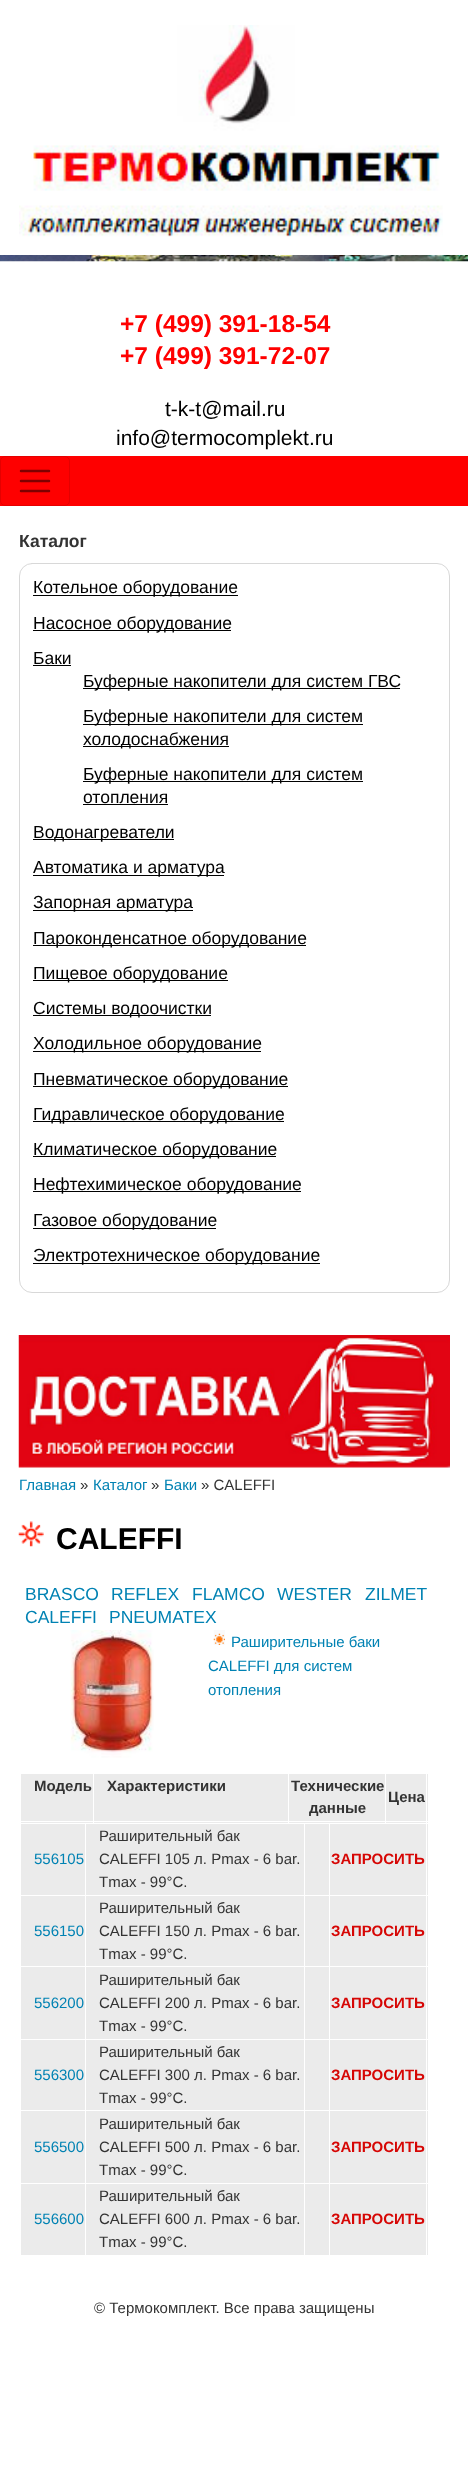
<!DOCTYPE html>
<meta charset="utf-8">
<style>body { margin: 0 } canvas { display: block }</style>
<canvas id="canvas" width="468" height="2480"></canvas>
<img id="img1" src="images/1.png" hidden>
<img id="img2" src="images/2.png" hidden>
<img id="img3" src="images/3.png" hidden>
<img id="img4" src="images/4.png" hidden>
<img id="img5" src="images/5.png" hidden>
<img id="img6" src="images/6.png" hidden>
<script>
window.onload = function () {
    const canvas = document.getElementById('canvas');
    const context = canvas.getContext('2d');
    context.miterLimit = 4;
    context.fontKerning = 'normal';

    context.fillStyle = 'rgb(255, 255, 255)';
    context.fillRect(0, 0, 468, 2480);
    context.drawImage(document.getElementById('img1'), 19, 25, 424, 212);
    context.drawImage(document.getElementById('img2'), 0, 255, 468, 7);
    context.fillStyle = 'rgb(254, 0, 0)';
    context.fillRect(0, 456, 468, 50);
    context.beginPath();
    context.roundRect(0.5, 456.5, 69, 49, 4.5);
    context.strokeStyle = 'rgb(229, 0, 0)';
    context.stroke();
    context.beginPath();
    context.moveTo(21, 471);
    context.lineTo(49, 471);
    context.moveTo(21, 481);
    context.lineTo(49, 481);
    context.moveTo(21, 491);
    context.lineTo(49, 491);
    context.strokeStyle = 'rgb(127, 0, 0)';
    context.lineWidth = 2.5;
    context.lineCap = 'round';
    context.stroke();
    context.beginPath();
    context.roundRect(19.5, 563.5, 430, 729, 12.5);
    context.strokeStyle = 'rgb(216, 216, 216)';
    context.lineWidth = 1;
    context.stroke();
    context.fillStyle = 'rgb(0, 0, 0)';
    context.fillRect(33, 595, 205, 1);
    context.fillRect(33, 630, 198, 1);
    context.fillRect(33, 665, 38, 1);
    context.fillRect(83, 688, 317, 1);
    context.fillRect(83, 724, 280, 1);
    context.fillRect(83, 746, 146, 1);
    context.fillRect(83, 781, 280, 1);
    context.fillRect(83, 804, 85, 1);
    context.fillRect(33, 839, 141, 1);
    context.fillRect(33, 875, 191, 1);
    context.fillRect(33, 910, 160, 1);
    context.fillRect(33, 945, 273, 1);
    context.fillRect(33, 980, 195, 1);
    context.fillRect(33, 1015, 178, 1);
    context.fillRect(33, 1051, 228, 1);
    context.fillRect(33, 1086, 255, 1);
    context.fillRect(33, 1121, 251, 1);
    context.fillRect(33, 1156, 243, 1);
    context.fillRect(33, 1191, 268, 1);
    context.fillRect(33, 1228, 183, 1);
    context.fillRect(33, 1263, 287, 1);
    context.drawImage(document.getElementById('img3'), 18, 1335, 432, 133);
    context.drawImage(document.getElementById('img4'), 18, 1521, 26, 26);
    context.drawImage(document.getElementById('img5'), 70, 1630, 84, 128);
    context.drawImage(document.getElementById('img6'), 213, 1630, 12, 15);
    context.fillStyle = 'rgb(235, 235, 235)';
    context.fillRect(21, 1774, 407, 49);
    context.fillStyle = 'rgb(255, 255, 255)';
    context.fillRect(426, 1773, 1, 50);
    context.fillRect(385, 1821, 43, 1);
    context.fillRect(385, 1773, 1, 50);
    context.fillRect(288, 1821, 98, 1);
    context.fillRect(288, 1773, 1, 50);
    context.fillRect(93, 1821, 196, 1);
    context.fillRect(93, 1773, 1, 50);
    context.fillRect(20, 1821, 74, 1);
    context.fillStyle = 'rgb(235, 235, 235)';
    context.fillRect(21, 1824, 407, 431);
    context.fillStyle = 'rgb(255, 255, 255)';
    context.fillRect(329, 1895, 99, 1);
    context.fillRect(329, 1966, 99, 1);
    context.fillRect(329, 2039, 99, 1);
    context.fillRect(329, 2110, 99, 1);
    context.fillRect(329, 2183, 99, 1);
    context.fillRect(329, 2183, 1, 73);
    context.fillRect(304, 2183, 26, 1);
    context.fillRect(329, 2110, 1, 74);
    context.fillRect(304, 2110, 26, 1);
    context.fillRect(329, 2039, 1, 72);
    context.fillRect(304, 2039, 26, 1);
    context.fillRect(329, 1966, 1, 74);
    context.fillRect(304, 1966, 26, 1);
    context.fillRect(329, 1895, 1, 73);
    context.fillRect(304, 1895, 26, 1);
    context.fillRect(304, 2183, 1, 73);
    context.fillRect(85, 2183, 220, 1);
    context.fillRect(304, 2110, 1, 74);
    context.fillRect(85, 2110, 220, 1);
    context.fillRect(304, 2039, 1, 72);
    context.fillRect(85, 2039, 220, 1);
    context.fillRect(304, 1966, 1, 74);
    context.fillRect(85, 1966, 220, 1);
    context.fillRect(304, 1895, 1, 73);
    context.fillRect(85, 1895, 220, 1);
    context.fillRect(85, 2183, 1, 73);
    context.fillRect(20, 2183, 66, 1);
    context.fillRect(85, 2110, 1, 74);
    context.fillRect(20, 2110, 66, 1);
    context.fillRect(85, 2039, 1, 72);
    context.fillRect(20, 2039, 66, 1);
    context.fillRect(85, 1966, 1, 74);
    context.fillRect(20, 1966, 66, 1);
    context.fillRect(85, 1895, 1, 73);
    context.fillRect(20, 1895, 66, 1);
    context.fillRect(85, 1823, 1, 73);
    context.fillRect(304, 1823, 1, 73);
    context.fillRect(329, 1823, 1, 73);
    context.fillRect(426, 2183, 1, 73);
    context.fillRect(426, 2110, 1, 74);
    context.fillRect(426, 2039, 1, 72);
    context.fillRect(426, 1966, 1, 74);
    context.fillRect(426, 1823, 1, 145);
    context.font = 'bold 24.5px Liberation Sans';
    context.fillStyle = 'rgb(255, 0, 0)';
    context.fillText('+7 (499) 391-18-54', 120, 332);
    context.fillText('+7 (499) 391-72-07', 120, 364);
    context.font = '21px Liberation Sans';
    context.fillStyle = 'rgb(0, 0, 0)';
    context.fillText('t-k-t@mail.ru', 165, 416);
    context.fillText('info@termocomplekt.ru', 116, 445);
    context.font = 'bold 17.5px Liberation Sans';
    context.fillStyle = 'rgb(51, 51, 51)';
    context.fillText('Каталог', 19, 547);
    context.font = '17.5px Liberation Sans';
    context.fillStyle = 'rgb(0, 0, 0)';
    context.fillText('Котельное оборудование', 33, 593);
    context.fillText('Насосное оборудование', 33, 629);
    context.fillText('Баки', 33, 664);
    context.fillText('Буферные накопители для систем ГВС', 83, 687);
    context.fillText('Буферные накопители для систем', 83, 722);
    context.fillText('холодоснабжения', 83, 745);
    context.fillText('Буферные накопители для систем', 83, 780);
    context.fillText('отопления', 83, 803);
    context.fillText('Водонагреватели', 33, 838);
    context.fillText('Автоматика и арматура', 33, 873);
    context.fillText('Запорная арматура', 33, 908);
    context.fillText('Пароконденсатное оборудование', 33, 944);
    context.fillText('Пищевое оборудование', 33, 979);
    context.fillText('Системы водоочистки', 33, 1014);
    context.fillText('Холодильное оборудование', 33, 1049);
    context.fillText('Пневматическое оборудование', 33, 1085);
    context.fillText('Гидравлическое оборудование', 33, 1120);
    context.fillText('Климатическое оборудование', 33, 1155);
    context.fillText('Нефтехимическое оборудование', 33, 1190);
    context.fillText('Газовое оборудование', 33, 1226);
    context.fillText('Электротехническое оборудование', 33, 1261);
    context.font = '15px Liberation Sans';
    context.fillStyle = 'rgb(0, 130, 179)';
    context.fillText('Главная', 19, 1490);
    context.fillStyle = 'rgb(51, 51, 51)';
    context.fillText('»', 80, 1490);
    context.fillStyle = 'rgb(0, 130, 179)';
    context.fillText('Каталог', 93, 1490);
    context.fillStyle = 'rgb(51, 51, 51)';
    context.fillText('»', 151, 1490);
    context.fillStyle = 'rgb(0, 130, 179)';
    context.fillText('Баки', 164, 1490);
    context.fillStyle = 'rgb(51, 51, 51)';
    context.fillText('» CALEFFI', 201, 1490);
    context.font = 'bold 30px Liberation Sans';
    context.fillStyle = 'rgb(0, 0, 0)';
    context.fillText('CALEFFI', 56, 1549);
    context.font = '17.5px Liberation Sans';
    context.fillStyle = 'rgb(0, 130, 179)';
    context.fillText('BRASCO', 25, 1600);
    context.fillText('REFLEX', 111, 1600);
    context.fillText('FLAMCO', 192, 1600);
    context.fillText('WESTER', 277, 1600);
    context.fillText('ZILMET', 365, 1600);
    context.fillText('CALEFFI', 25, 1623);
    context.fillText('PNEUMATEX', 109, 1623);
    context.font = '15px Liberation Sans';
    context.fillText('Раширительные баки', 231, 1647);
    context.fillText('CALEFFI для систем', 208, 1671);
    context.fillText('отопления', 208, 1695);
    context.font = 'bold 15px Liberation Sans';
    context.fillStyle = 'rgb(51, 51, 51)';
    context.fillText('Модель', 34, 1791);
    context.fillText('Характеристики', 107, 1791);
    context.fillText('Технические', 291, 1791);
    context.fillText('данные', 309, 1813);
    context.fillText('Цена', 388, 1802);
    context.font = '15px Liberation Sans';
    context.fillStyle = 'rgb(0, 130, 179)';
    context.fillText('556105', 34, 1864);
    context.fillStyle = 'rgb(51, 51, 51)';
    context.fillText('Раширительный бак', 99, 1841);
    context.fillText('CALEFFI 105 л. Pmax - 6 bar.', 99, 1864);
    context.fillText('Tmax - 99°C.', 99, 1887);
    context.font = 'bold 15px Liberation Sans';
    context.fillStyle = 'rgb(214, 6, 4)';
    context.fillText('ЗАПРОСИТЬ', 331, 1864);
    context.font = '15px Liberation Sans';
    context.fillStyle = 'rgb(0, 130, 179)';
    context.fillText('556150', 34, 1936);
    context.fillStyle = 'rgb(51, 51, 51)';
    context.fillText('Раширительный бак', 99, 1913);
    context.fillText('CALEFFI 150 л. Pmax - 6 bar.', 99, 1936);
    context.fillText('Tmax - 99°C.', 99, 1959);
    context.font = 'bold 15px Liberation Sans';
    context.fillStyle = 'rgb(214, 6, 4)';
    context.fillText('ЗАПРОСИТЬ', 331, 1936);
    context.font = '15px Liberation Sans';
    context.fillStyle = 'rgb(0, 130, 179)';
    context.fillText('556200', 34, 2008);
    context.fillStyle = 'rgb(51, 51, 51)';
    context.fillText('Раширительный бак', 99, 1985);
    context.fillText('CALEFFI 200 л. Pmax - 6 bar.', 99, 2008);
    context.fillText('Tmax - 99°C.', 99, 2031);
    context.font = 'bold 15px Liberation Sans';
    context.fillStyle = 'rgb(214, 6, 4)';
    context.fillText('ЗАПРОСИТЬ', 331, 2008);
    context.font = '15px Liberation Sans';
    context.fillStyle = 'rgb(0, 130, 179)';
    context.fillText('556300', 34, 2080);
    context.fillStyle = 'rgb(51, 51, 51)';
    context.fillText('Раширительный бак', 99, 2057);
    context.fillText('CALEFFI 300 л. Pmax - 6 bar.', 99, 2080);
    context.fillText('Tmax - 99°C.', 99, 2103);
    context.font = 'bold 15px Liberation Sans';
    context.fillStyle = 'rgb(214, 6, 4)';
    context.fillText('ЗАПРОСИТЬ', 331, 2080);
    context.font = '15px Liberation Sans';
    context.fillStyle = 'rgb(0, 130, 179)';
    context.fillText('556500', 34, 2152);
    context.fillStyle = 'rgb(51, 51, 51)';
    context.fillText('Раширительный бак', 99, 2129);
    context.fillText('CALEFFI 500 л. Pmax - 6 bar.', 99, 2152);
    context.fillText('Tmax - 99°C.', 99, 2175);
    context.font = 'bold 15px Liberation Sans';
    context.fillStyle = 'rgb(214, 6, 4)';
    context.fillText('ЗАПРОСИТЬ', 331, 2152);
    context.font = '15px Liberation Sans';
    context.fillStyle = 'rgb(0, 130, 179)';
    context.fillText('556600', 34, 2224);
    context.fillStyle = 'rgb(51, 51, 51)';
    context.fillText('Раширительный бак', 99, 2201);
    context.fillText('CALEFFI 600 л. Pmax - 6 bar.', 99, 2224);
    context.fillText('Tmax - 99°C.', 99, 2247);
    context.font = 'bold 15px Liberation Sans';
    context.fillStyle = 'rgb(214, 6, 4)';
    context.fillText('ЗАПРОСИТЬ', 331, 2224);
    context.font = '15px Liberation Sans';
    context.fillStyle = 'rgb(51, 51, 51)';
    context.fillText('© Термокомплект. Все права защищены', 94, 2313);
};
</script>
